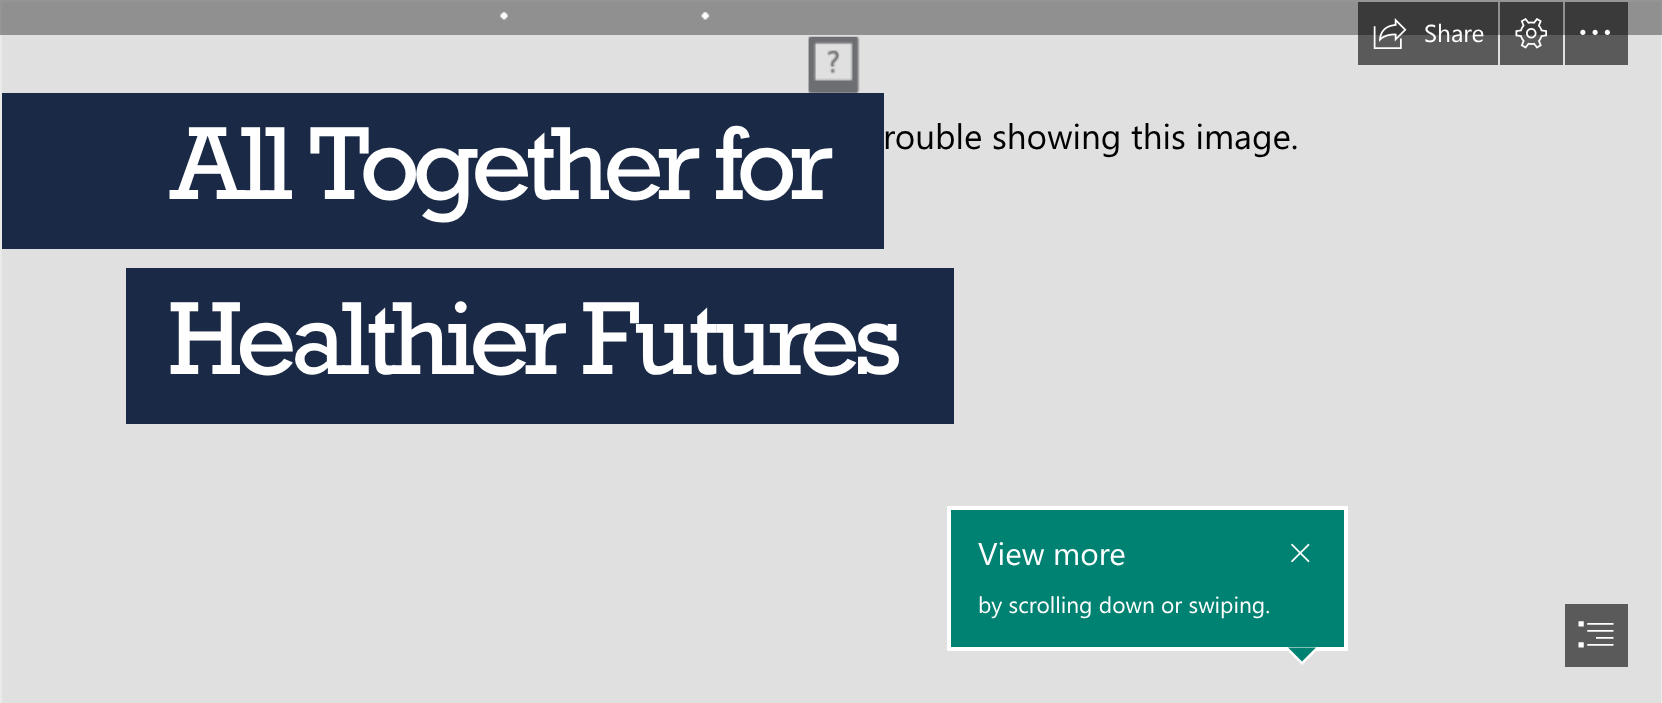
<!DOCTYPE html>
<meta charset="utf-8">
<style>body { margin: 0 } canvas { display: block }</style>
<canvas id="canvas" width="1662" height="703"></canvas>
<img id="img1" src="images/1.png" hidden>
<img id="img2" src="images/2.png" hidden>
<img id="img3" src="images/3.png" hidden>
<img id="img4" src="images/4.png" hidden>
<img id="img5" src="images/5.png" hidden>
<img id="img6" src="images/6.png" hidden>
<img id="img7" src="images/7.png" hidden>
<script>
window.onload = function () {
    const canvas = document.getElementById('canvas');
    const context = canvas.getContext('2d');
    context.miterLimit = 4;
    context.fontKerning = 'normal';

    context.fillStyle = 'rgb(234, 234, 234)';
    context.fillRect(0, 0, 1662, 703);
    context.fillStyle = 'rgb(149, 149, 149)';
    context.fillRect(0, 0, 1662, 35);
    context.fillStyle = 'rgb(224, 224, 224)';
    context.fillRect(2, 35, 1659, 668);
    context.fillStyle = 'rgb(90, 90, 90)';
    context.fillRect(1358, 35, 140, 30);
    context.fillStyle = 'rgb(144, 144, 144)';
    context.fillRect(2, 2, 1659, 33);
    context.fillStyle = 'rgb(58, 58, 58)';
    context.fillRect(1358, 2, 140, 33);
    context.drawImage(document.getElementById('img1'), 1373, 18, 34, 31);
    context.fillStyle = 'rgb(90, 90, 90)';
    context.fillRect(1500, 35, 63, 30);
    context.fillStyle = 'rgb(58, 58, 58)';
    context.fillRect(1500, 2, 63, 33);
    context.drawImage(document.getElementById('img2'), 1515, 18, 32, 31);
    context.fillRect(1565, 2, 63, 33);
    context.drawImage(document.getElementById('img3'), 1580, 29, 30, 6);
    context.drawImage(document.getElementById('img4'), 500, 11, 210, 9);
    context.fillStyle = 'rgb(26, 42, 70)';
    context.fillRect(2, 93, 882, 156);
    context.fillRect(126, 268, 828, 156);
    context.fillStyle = 'rgb(90, 90, 90)';
    context.fillRect(1565, 35, 63, 30);
    context.drawImage(document.getElementById('img5'), 808, 36, 52, 57);
    context.fillStyle = 'rgb(0, 130, 114)';
    context.beginPath();
    context.rect(949, 508, 397, 141);
    context.fill();
    context.strokeStyle = 'rgb(255, 255, 255)';
    context.lineWidth = 4;
    context.stroke();
    context.drawImage(document.getElementById('img6'), 1291, 543, 19, 20);
    context.fillStyle = 'rgb(255, 255, 255)';
    context.beginPath();
    context.moveTo(1284.5, 647.5);
    context.lineTo(1319.5, 647.5);
    context.lineTo(1302, 665);
    context.closePath();
    context.fill();
    context.fillStyle = 'rgb(0, 130, 114)';
    context.beginPath();
    context.moveTo(1288, 647.5);
    context.lineTo(1316, 647.5);
    context.lineTo(1302, 661.5);
    context.closePath();
    context.fill();
    context.fillStyle = 'rgb(90, 90, 90)';
    context.fillRect(1565, 604, 63, 63);
    context.drawImage(document.getElementById('img7'), 1578, 621, 36, 27);
    context.font = '24.5px Segoe UI';
    context.fillStyle = 'rgb(255, 255, 255)';
    context.fillText('Share', 1424, 42);
    context.letterSpacing = '-7.1px';
    context.font = '97.5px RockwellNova';
    context.fillText('All Together for', 168, 199);
    context.letterSpacing = '-6.3px';
    context.fillText('Healthier Futures', 168, 374);
    context.letterSpacing = '0px';
    context.font = '35px Segoe UI';
    context.fillStyle = 'rgb(0, 0, 0)';
    context.fillText('rouble showing this image.', 883, 149);
    context.font = '31.5px Segoe UI';
    context.fillStyle = 'rgb(255, 255, 255)';
    context.fillText('View more', 978, 565);
    context.font = '22.75px Segoe UI';
    context.fillText('by scrolling down or swiping.', 978, 613);
};
</script>
